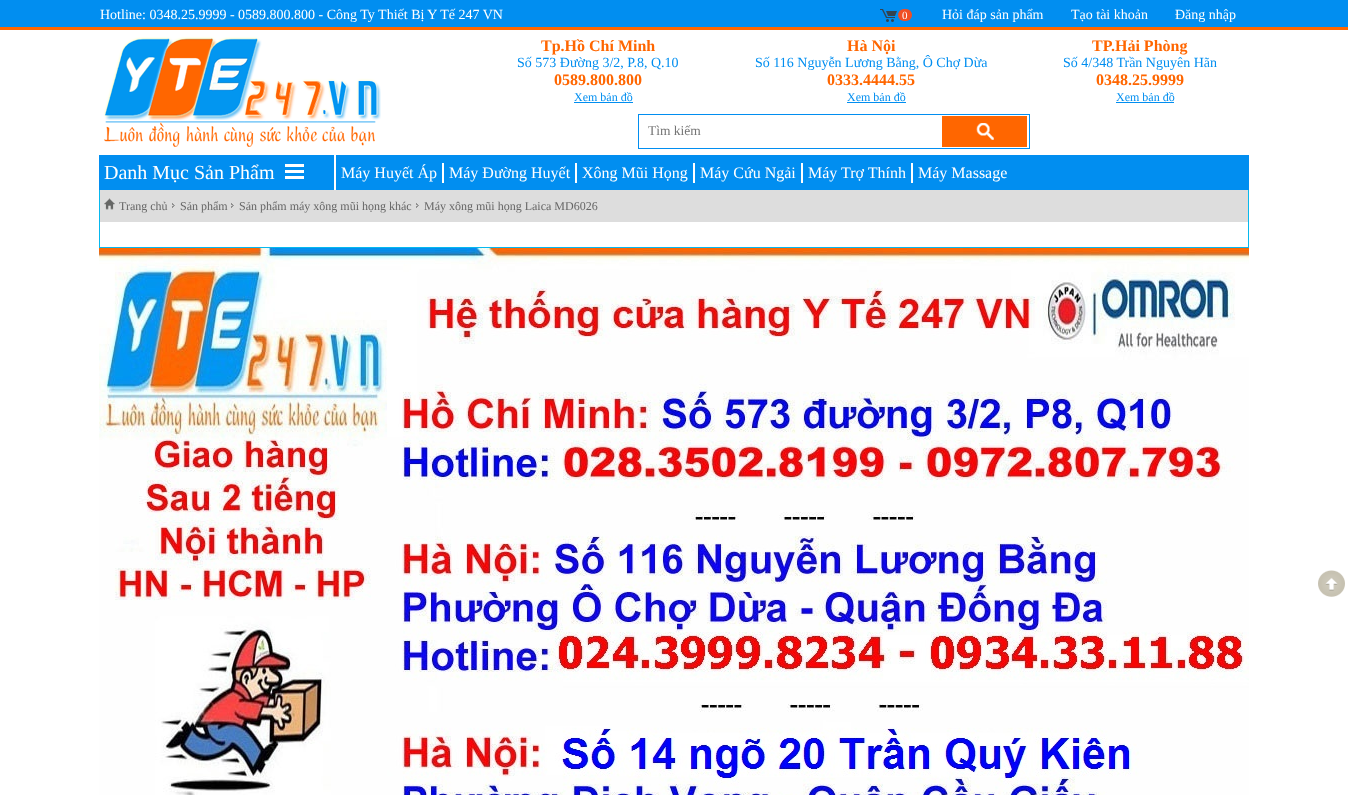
<!DOCTYPE html>
<meta charset="utf-8">
<style>body { margin: 0 } canvas { display: block }</style>
<canvas id="canvas" width="1348" height="795"></canvas>
<img id="img1" src="images/1.png" hidden>
<img id="img2" src="images/2.png" hidden>
<img id="img3" src="images/3.png" hidden>
<img id="img4" src="images/4.png" hidden>
<img id="img5" src="images/5.png" hidden>
<img id="img6" src="images/6.png" hidden>
<img id="img7" src="images/7.png" hidden>
<img id="img8" src="images/8.png" hidden>
<script>
window.onload = function () {
    const canvas = document.getElementById('canvas');
    const context = canvas.getContext('2d');
    context.miterLimit = 4;
    context.fontKerning = 'normal';

    context.fillStyle = 'rgb(255, 255, 255)';
    context.fillRect(0, 0, 1348, 795);
    context.fillStyle = 'rgb(1, 142, 240)';
    context.fillRect(0, 0, 1348, 27);
    context.fillStyle = 'rgb(255, 102, 0)';
    context.fillRect(0, 27, 1348, 3);
    context.drawImage(document.getElementById('img1'), 880, 9, 17, 13);
    context.fillStyle = 'rgb(240, 78, 35)';
    context.beginPath();
    context.roundRect(898, 9, 14, 12, 6);
    context.fill();
    context.drawImage(document.getElementById('img2'), 103, 36, 278, 111);
    context.fillStyle = 'rgb(1, 142, 240)';
    context.fillRect(574, 102, 59, 1);
    context.fillRect(847, 102, 59, 1);
    context.fillRect(1116, 102, 58, 1);
    context.strokeStyle = 'rgb(1, 142, 240)';
    context.strokeRect(638.5, 114.5, 391, 34);
    context.fillStyle = 'rgb(255, 102, 0)';
    context.fillRect(942, 116, 85, 31);
    context.drawImage(document.getElementById('img3'), 976, 123, 18, 17);
    context.fillStyle = 'rgb(1, 142, 240)';
    context.fillRect(99, 155, 1150, 35);
    context.fillStyle = 'rgb(255, 255, 255)';
    context.fillRect(334, 155, 2, 35);
    context.drawImage(document.getElementById('img4'), 285, 164, 19, 15);
    context.fillRect(442, 163, 2, 20);
    context.fillRect(575, 163, 2, 20);
    context.fillRect(693, 163, 2, 20);
    context.fillRect(801, 163, 2, 20);
    context.fillRect(911, 163, 2, 20);
    context.fillStyle = 'rgb(7, 184, 238)';
    context.fillRect(1248, 190, 1, 58);
    context.fillRect(99, 247, 1150, 1);
    context.fillRect(99, 190, 1, 58);
    context.fillStyle = 'rgb(221, 221, 221)';
    context.fillRect(100, 190, 1148, 32);
    context.drawImage(document.getElementById('img5'), 104, 198, 11, 12);
    context.drawImage(document.getElementById('img6'), 172, 203, 3, 5);
    context.drawImage(document.getElementById('img6'), 231, 203, 3, 5);
    context.drawImage(document.getElementById('img6'), 416, 203, 3, 5);
    context.drawImage(document.getElementById('img7'), 99, 248, 1150, 547);
    context.drawImage(document.getElementById('img8'), 1318, 570, 27, 27);
    context.font = '14px Liberation Serif';
    context.fillStyle = 'rgb(255, 255, 255)';
    context.fillText('Hotline: 0348.25.9999 - 0589.800.800 - Công Ty Thiết Bị Y Tế 247 VN', 100, 19);
    context.font = '11px Liberation Serif';
    context.fillText('0', 902, 19);
    context.font = '14px Liberation Serif';
    context.fillText('Hỏi đáp sản phẩm', 942, 19);
    context.fillText('Tạo tài khoản', 1071, 19);
    context.fillText('Đăng nhập', 1175, 19);
    context.font = 'bold 16px Liberation Serif';
    context.fillStyle = 'rgb(255, 102, 0)';
    context.fillText('Tp.Hồ Chí Minh', 541, 51);
    context.font = '14px Liberation Serif';
    context.fillStyle = 'rgb(1, 142, 240)';
    context.fillText('Số 573 Đường 3/2, P.8, Q.10', 517, 67);
    context.font = 'bold 16px Liberation Serif';
    context.fillStyle = 'rgb(255, 102, 0)';
    context.fillText('0589.800.800', 554, 85);
    context.font = '12px Liberation Serif';
    context.fillStyle = 'rgb(1, 142, 240)';
    context.fillText('Xem bản đồ', 574, 101);
    context.font = 'bold 16px Liberation Serif';
    context.fillStyle = 'rgb(255, 102, 0)';
    context.fillText('Hà Nội', 847, 51);
    context.font = '14px Liberation Serif';
    context.fillStyle = 'rgb(1, 142, 240)';
    context.fillText('Số 116 Nguyễn Lương Bằng, Ô Chợ Dừa', 755, 67);
    context.font = 'bold 16px Liberation Serif';
    context.fillStyle = 'rgb(255, 102, 0)';
    context.fillText('0333.4444.55', 827, 85);
    context.font = '12px Liberation Serif';
    context.fillStyle = 'rgb(1, 142, 240)';
    context.fillText('Xem bản đồ', 847, 101);
    context.font = 'bold 16px Liberation Serif';
    context.fillStyle = 'rgb(255, 102, 0)';
    context.fillText('TP.Hải Phòng', 1092, 51);
    context.font = '14px Liberation Serif';
    context.fillStyle = 'rgb(1, 142, 240)';
    context.fillText('Số 4/348 Trần Nguyên Hãn', 1063, 67);
    context.font = 'bold 16px Liberation Serif';
    context.fillStyle = 'rgb(255, 102, 0)';
    context.fillText('0348.25.9999', 1096, 85);
    context.font = '12px Liberation Serif';
    context.fillStyle = 'rgb(1, 142, 240)';
    context.fillText('Xem bản đồ', 1116, 101);
    context.font = '13.5px Liberation Serif';
    context.fillStyle = 'rgb(117, 117, 117)';
    context.fillText('Tìm kiếm', 648, 135);
    context.font = '20px Liberation Serif';
    context.fillStyle = 'rgb(255, 255, 255)';
    context.fillText('Danh Mục Sản Phẩm', 104, 179);
    context.font = '16px Liberation Serif';
    context.fillText('Máy Huyết Áp', 341, 178);
    context.fillText('Máy Đường Huyết', 449, 178);
    context.fillText('Xông Mũi Họng', 582, 178);
    context.fillText('Máy Cứu Ngải', 700, 178);
    context.fillText('Máy Trợ Thính', 808, 178);
    context.fillText('Máy Massage', 918, 178);
    context.font = '12px Liberation Serif';
    context.fillStyle = 'rgb(102, 102, 102)';
    context.fillText('Trang chủ', 119, 210);
    context.fillText('Sản phẩm', 180, 210);
    context.fillText('Sản phẩm máy xông mũi họng khác', 239, 210);
    context.fillText('Máy xông mũi họng Laica MD6026', 424, 210);
};
</script>
